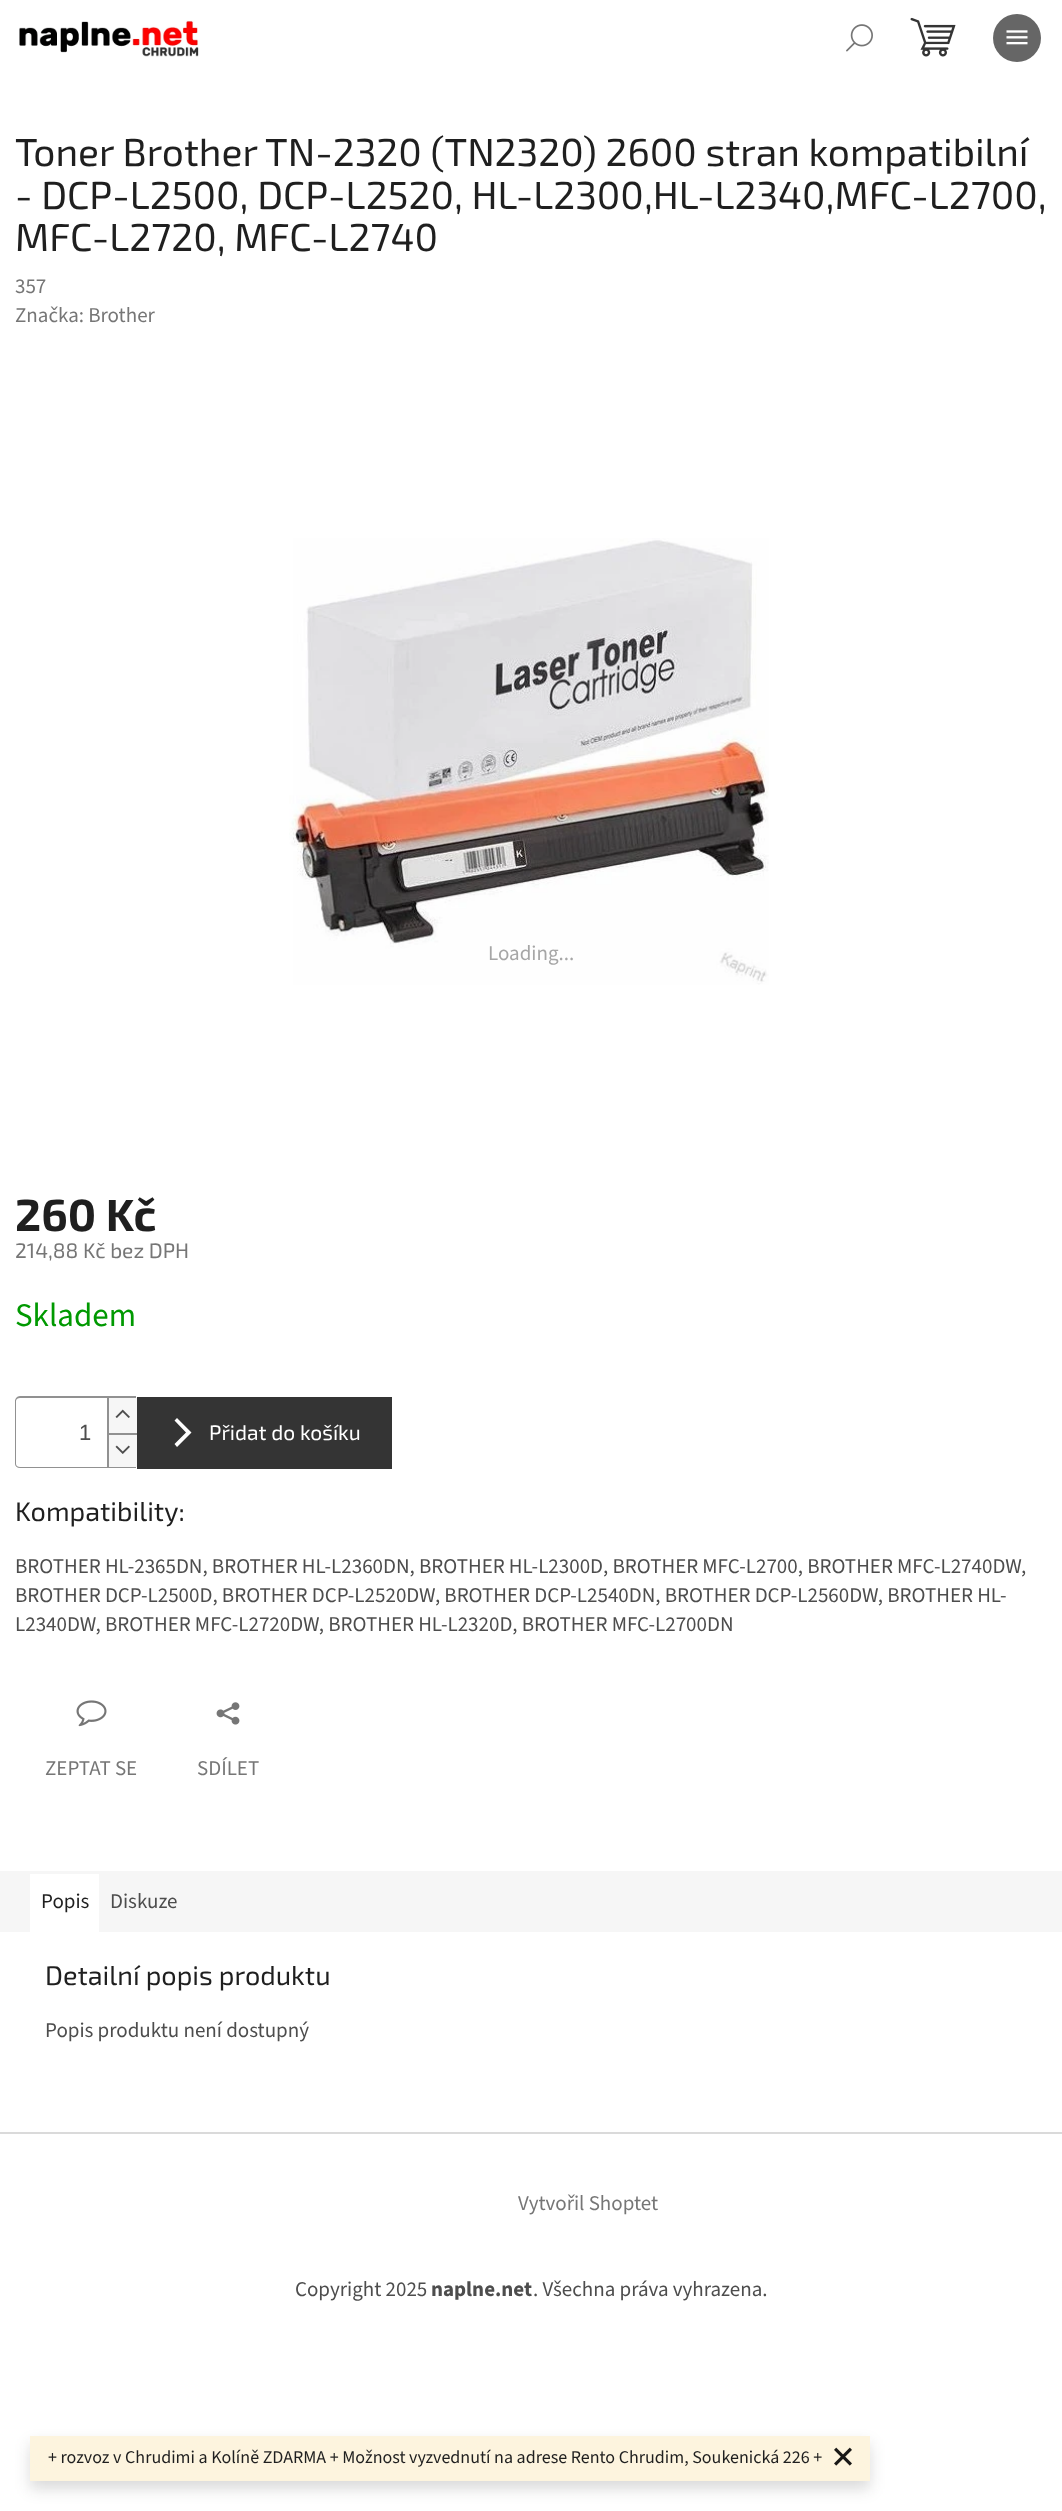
<!DOCTYPE html>
<meta charset="utf-8">
<style>body { margin: 0 } canvas { display: block }</style>
<canvas id="canvas" width="1062" height="2511"></canvas>
<img id="img1" src="images/1.png" hidden>
<img id="img2" src="images/2.png" hidden>
<img id="img3" src="images/3.png" hidden>
<img id="img4" src="images/4.png" hidden>
<img id="img5" src="images/5.png" hidden>
<img id="img6" src="images/6.png" hidden>
<img id="img7" src="images/7.png" hidden>
<img id="img8" src="images/8.png" hidden>
<img id="img9" src="images/9.png" hidden>
<img id="img10" src="images/10.png" hidden>
<script>
window.onload = function () {
    const canvas = document.getElementById('canvas');
    const context = canvas.getContext('2d');
    context.miterLimit = 4;
    context.fontKerning = 'normal';

    context.fillStyle = 'rgb(255, 255, 255)';
    context.fillRect(0, 0, 1062, 2511);
    context.drawImage(document.getElementById('img1'), 846, 24, 27, 28);
    context.fillStyle = 'rgb(102, 102, 102)';
    context.beginPath();
    context.arc(1017, 38, 24, 0, 2 * Math.PI);
    context.fill();
    context.drawImage(document.getElementById('img2'), 1006, 30, 22, 15);
    context.drawImage(document.getElementById('img3'), 19, 20, 180, 37);
    context.drawImage(document.getElementById('img4'), 910, 17, 46, 40);
    context.drawImage(document.getElementById('img5'), 289, 538, 480, 447);
    context.fillStyle = 'rgb(145, 145, 145)';
    context.beginPath();
    context.moveTo(20, 1396);
    context.lineTo(136, 1396);
    context.lineTo(136, 1468);
    context.lineTo(20, 1468);
    context.bezierCurveTo(17, 1468, 15, 1466, 15, 1464);
    context.lineTo(15, 1401);
    context.bezierCurveTo(15, 1399, 17, 1396, 20, 1396);
    context.closePath();
    context.moveTo(20, 1398);
    context.lineTo(136, 1398);
    context.lineTo(136, 1467);
    context.lineTo(20, 1467);
    context.bezierCurveTo(18, 1467, 16, 1466, 16, 1464);
    context.lineTo(16, 1401);
    context.bezierCurveTo(16, 1399, 18, 1398, 20, 1398);
    context.closePath();
    context.fill('evenodd');
    context.fillStyle = 'rgb(246, 246, 246)';
    context.fillRect(109, 1398, 28, 35);
    context.fillStyle = 'rgb(145, 145, 145)';
    context.fillRect(107, 1398, 2, 35);
    context.drawImage(document.getElementById('img6'), 115, 1409, 15, 9);
    context.fillStyle = 'rgb(246, 246, 246)';
    context.fillRect(109, 1435, 28, 32);
    context.fillStyle = 'rgb(145, 145, 145)';
    context.fillRect(107, 1433, 30, 2);
    context.fillRect(107, 1433, 2, 34);
    context.drawImage(document.getElementById('img7'), 115, 1445, 15, 9);
    context.fillStyle = 'rgb(52, 52, 52)';
    context.fillRect(137, 1397, 255, 72);
    context.fillStyle = 'rgb(255, 255, 255)';
    context.beginPath();
    context.moveTo(177, 1447);
    context.lineTo(174.5, 1444);
    context.lineTo(186, 1432.5);
    context.lineTo(174.5, 1420.5);
    context.lineTo(177, 1418);
    context.lineTo(191.5, 1432.5);
    context.closePath();
    context.fill();
    context.drawImage(document.getElementById('img8'), 76, 1700, 31, 27);
    context.drawImage(document.getElementById('img9'), 216, 1702, 24, 23);
    context.fillStyle = 'rgb(246, 246, 246)';
    context.fillRect(0, 1871, 1062, 61);
    context.fillStyle = 'rgb(255, 255, 255)';
    context.fillRect(30, 1874, 69, 58);
    context.fillStyle = 'rgb(218, 218, 218)';
    context.fillRect(0, 2132, 1062, 2);
    context.fillStyle = 'rgba(26, 26, 26, 0.16)';
    context.filter = 'blur(7.5px)';
    context.beginPath();
    context.rect(30, 2444, 840, 45);
    context.fill();
    context.filter = 'none';
    context.fillStyle = 'rgb(253, 244, 222)';
    context.fillRect(30, 2436, 840, 45);
    context.drawImage(document.getElementById('img10'), 834, 2447, 18, 19);
    context.font = '39px "Exo 2"';
    context.fillStyle = 'rgb(31, 31, 31)';
    context.fillText('Toner Brother TN-2320 (TN2320) 2600 stran kompatibilní', 15, 166);
    context.fillText('- DCP-L2500, DCP-L2520, HL-L2300,HL-L2340,MFC-L2700,', 15, 209);
    context.fillText('MFC-L2720, MFC-L2740', 15, 251);
    context.font = '21px "Source Sans 3"';
    context.fillStyle = 'rgb(118, 118, 118)';
    context.fillText('357', 15, 293);
    context.fillText('Značka: Brother', 15, 322);
    context.fillStyle = 'rgb(166, 166, 166)';
    context.fillText('Loading...', 488, 960);
    context.font = 'bold 45px "Exo 2"';
    context.fillStyle = 'rgb(31, 31, 31)';
    context.fillText('260 Kč', 15, 1231);
    context.font = '21px "Exo 2"';
    context.fillStyle = 'rgb(118, 118, 118)';
    context.fillText('214,88 Kč bez DPH', 15, 1258);
    context.font = '33px "Source Sans 3"';
    context.fillStyle = 'rgb(0, 153, 1)';
    context.fillText('Skladem', 15, 1326);
    context.font = '22px Liberation Sans';
    context.fillStyle = 'rgb(77, 77, 77)';
    context.fillText('1', 79, 1440);
    context.font = '21px "Exo 2"';
    context.fillStyle = 'rgb(255, 255, 255)';
    context.fillText('Přidat do košíku', 209, 1440);
    context.font = '27px "Exo 2"';
    context.fillStyle = 'rgb(31, 31, 31)';
    context.fillText('Kompatibility:', 15, 1521);
    context.font = '21px "Source Sans 3"';
    context.fillStyle = 'rgb(77, 77, 77)';
    context.fillText('BROTHER HL-2365DN, BROTHER HL-L2360DN, BROTHER HL-L2300D, BROTHER MFC-L2700, BROTHER MFC-L2740DW,', 15, 1573);
    context.fillText('BROTHER DCP-L2500D, BROTHER DCP-L2520DW, BROTHER DCP-L2540DN, BROTHER DCP-L2560DW, BROTHER HL-', 15, 1602);
    context.fillText('L2340DW, BROTHER MFC-L2720DW, BROTHER HL-L2320D, BROTHER MFC-L2700DN', 15, 1631);
    context.fillStyle = 'rgb(118, 118, 118)';
    context.fillText('ZEPTAT SE', 45, 1775);
    context.fillText('SDÍLET', 197, 1775);
    context.fillStyle = 'rgb(31, 31, 31)';
    context.fillText('Popis', 41, 1908);
    context.fillStyle = 'rgb(77, 77, 77)';
    context.fillText('Diskuze', 110, 1908);
    context.font = '27px "Exo 2"';
    context.fillStyle = 'rgb(31, 31, 31)';
    context.fillText('Detailní popis produktu', 45, 1985);
    context.font = '21px "Source Sans 3"';
    context.fillStyle = 'rgb(77, 77, 77)';
    context.fillText('Popis produktu není dostupný', 45, 2037);
    context.fillStyle = 'rgb(118, 118, 118)';
    context.fillText('Vytvořil Shoptet', 518, 2210);
    context.fillStyle = 'rgb(77, 77, 77)';
    context.fillText('Copyright 2025', 295, 2296);
    context.font = 'bold 21px "Source Sans 3"';
    context.fillText('naplne.net', 431, 2296);
    context.font = '21px "Source Sans 3"';
    context.fillText('. Všechna práva vyhrazena.', 533, 2296);
    context.font = '18px "Source Sans 3"';
    context.fillStyle = 'rgb(31, 31, 31)';
    context.fillText('+ rozvoz v Chrudimi a Kolíně ZDARMA + Možnost vyzvednutí na adrese Rento Chrudim, Soukenická 226 +', 48, 2463);
};
</script>
